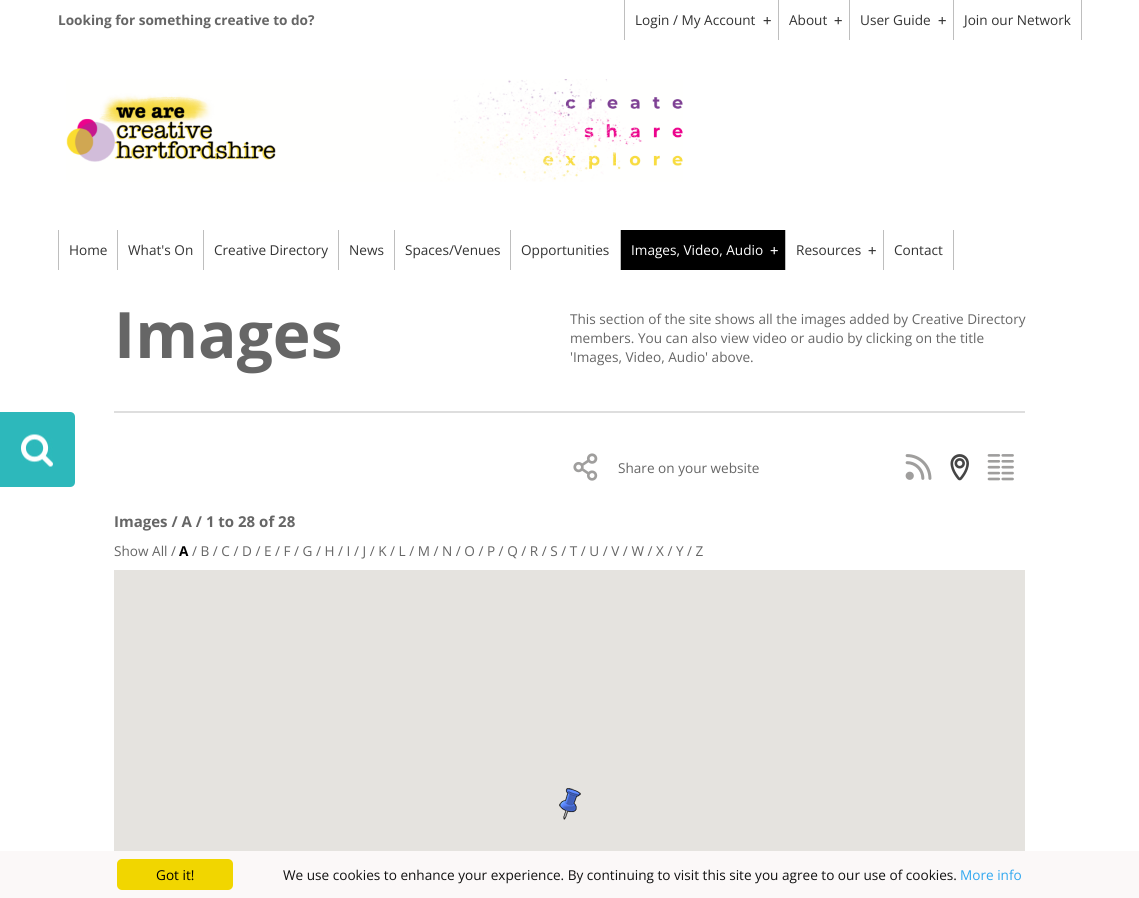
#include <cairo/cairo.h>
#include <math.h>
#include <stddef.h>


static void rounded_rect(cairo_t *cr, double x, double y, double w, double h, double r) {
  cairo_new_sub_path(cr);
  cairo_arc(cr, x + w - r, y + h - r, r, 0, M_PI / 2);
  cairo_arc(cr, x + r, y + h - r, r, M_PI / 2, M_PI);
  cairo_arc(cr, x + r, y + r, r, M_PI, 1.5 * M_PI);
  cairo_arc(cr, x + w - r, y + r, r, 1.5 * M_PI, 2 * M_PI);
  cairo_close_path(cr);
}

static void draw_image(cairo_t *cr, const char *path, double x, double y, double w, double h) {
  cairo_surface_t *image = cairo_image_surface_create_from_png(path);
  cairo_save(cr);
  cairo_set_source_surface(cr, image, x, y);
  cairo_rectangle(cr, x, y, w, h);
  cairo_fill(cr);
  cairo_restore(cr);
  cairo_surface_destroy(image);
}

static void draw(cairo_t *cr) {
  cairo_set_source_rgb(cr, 1, 1, 1);
  cairo_paint(cr);
  cairo_set_source_rgb(cr, 190 / 255.0, 190 / 255.0, 190 / 255.0);
  cairo_rectangle(cr, 624, 0, 1, 40);
  cairo_fill(cr);
  cairo_rectangle(cr, 778, 0, 1, 40);
  cairo_fill(cr);
  cairo_rectangle(cr, 849, 0, 1, 40);
  cairo_fill(cr);
  cairo_rectangle(cr, 1081, 0, 1, 40);
  cairo_fill(cr);
  cairo_rectangle(cr, 953, 0, 1, 40);
  cairo_fill(cr);
  draw_image(cr, "images/1.png", 66, 79, 617, 103);
  cairo_rectangle(cr, 58, 230, 1, 40);
  cairo_fill(cr);
  cairo_rectangle(cr, 117, 230, 1, 40);
  cairo_fill(cr);
  cairo_rectangle(cr, 203, 230, 1, 40);
  cairo_fill(cr);
  cairo_rectangle(cr, 338, 230, 1, 40);
  cairo_fill(cr);
  cairo_rectangle(cr, 394, 230, 1, 40);
  cairo_fill(cr);
  cairo_rectangle(cr, 510, 230, 1, 40);
  cairo_fill(cr);
  cairo_set_source_rgb(cr, 0, 0, 0);
  cairo_rectangle(cr, 621, 230, 164, 40);
  cairo_fill(cr);
  cairo_set_source_rgb(cr, 190 / 255.0, 190 / 255.0, 190 / 255.0);
  cairo_rectangle(cr, 620, 230, 1, 40);
  cairo_fill(cr);
  cairo_rectangle(cr, 785, 230, 1, 40);
  cairo_fill(cr);
  cairo_rectangle(cr, 953, 230, 1, 40);
  cairo_fill(cr);
  cairo_rectangle(cr, 883, 230, 1, 40);
  cairo_fill(cr);
  cairo_set_source_rgb(cr, 222 / 255.0, 222 / 255.0, 222 / 255.0);
  cairo_rectangle(cr, 114, 411, 911, 2);
  cairo_fill(cr);
  cairo_set_source_rgb(cr, 45 / 255.0, 184 / 255.0, 187 / 255.0);
  cairo_new_path(cr);
  cairo_move_to(cr, 0, 412);
  cairo_line_to(cr, 70, 412);
  cairo_curve_to(cr, 73, 412, 75, 414, 75, 417);
  cairo_line_to(cr, 75, 482);
  cairo_curve_to(cr, 75, 485, 73, 487, 70, 487);
  cairo_line_to(cr, 0, 487);
  cairo_close_path(cr);
  cairo_fill(cr);
  draw_image(cr, "images/2.png", 21, 434, 32, 33);
  draw_image(cr, "images/3.png", 573, 453, 25, 28);
  draw_image(cr, "images/4.png", 905, 454, 27, 26);
  draw_image(cr, "images/5.png", 950, 454, 19, 27);
  draw_image(cr, "images/6.png", 987, 454, 27, 27);
  cairo_set_source_rgb(cr, 229 / 255.0, 227 / 255.0, 223 / 255.0);
  cairo_rectangle(cr, 114, 570, 911, 281);
  cairo_fill(cr);
  draw_image(cr, "images/7.png", 559, 788, 22, 32);
  cairo_set_source_rgb(cr, 251 / 255.0, 248 / 255.0, 248 / 255.0);
  cairo_rectangle(cr, 0, 851, 1139, 47);
  cairo_fill(cr);
  cairo_set_source_rgb(cr, 241 / 255.0, 214 / 255.0, 0);
  rounded_rect(cr, 117, 859, 116, 31, 5);
  cairo_fill(cr);
  cairo_select_font_face(cr, "Open Sans", CAIRO_FONT_SLANT_NORMAL, CAIRO_FONT_WEIGHT_BOLD);
  cairo_set_font_size(cr, 13.6);
  cairo_set_source_rgb(cr, 102 / 255.0, 102 / 255.0, 102 / 255.0);
  cairo_move_to(cr, 58, 25);
  cairo_show_text(cr, "Looking for something creative to do?");
  cairo_select_font_face(cr, "Open Sans", CAIRO_FONT_SLANT_NORMAL, CAIRO_FONT_WEIGHT_NORMAL);
  cairo_set_source_rgb(cr, 51 / 255.0, 51 / 255.0, 51 / 255.0);
  cairo_move_to(cr, 635, 25);
  cairo_show_text(cr, "Login / My Account");
  cairo_select_font_face(cr, "DejaVu Sans Mono", CAIRO_FONT_SLANT_NORMAL, CAIRO_FONT_WEIGHT_NORMAL);
  cairo_set_font_size(cr, 14);
  cairo_move_to(cr, 763, 25);
  cairo_show_text(cr, "+");
  cairo_select_font_face(cr, "Open Sans", CAIRO_FONT_SLANT_NORMAL, CAIRO_FONT_WEIGHT_NORMAL);
  cairo_set_font_size(cr, 13.6);
  cairo_move_to(cr, 789, 25);
  cairo_show_text(cr, "About");
  cairo_select_font_face(cr, "DejaVu Sans Mono", CAIRO_FONT_SLANT_NORMAL, CAIRO_FONT_WEIGHT_NORMAL);
  cairo_set_font_size(cr, 14);
  cairo_move_to(cr, 834, 25);
  cairo_show_text(cr, "+");
  cairo_select_font_face(cr, "Open Sans", CAIRO_FONT_SLANT_NORMAL, CAIRO_FONT_WEIGHT_NORMAL);
  cairo_set_font_size(cr, 13.6);
  cairo_move_to(cr, 860, 25);
  cairo_show_text(cr, "User Guide");
  cairo_select_font_face(cr, "DejaVu Sans Mono", CAIRO_FONT_SLANT_NORMAL, CAIRO_FONT_WEIGHT_NORMAL);
  cairo_set_font_size(cr, 14);
  cairo_move_to(cr, 938, 25);
  cairo_show_text(cr, "+");
  cairo_select_font_face(cr, "Open Sans", CAIRO_FONT_SLANT_NORMAL, CAIRO_FONT_WEIGHT_NORMAL);
  cairo_set_font_size(cr, 13.6);
  cairo_move_to(cr, 964, 25);
  cairo_show_text(cr, "Join our Network");
  cairo_move_to(cr, 69, 255);
  cairo_show_text(cr, "Home");
  cairo_move_to(cr, 128, 255);
  cairo_show_text(cr, "What's On");
  cairo_move_to(cr, 214, 255);
  cairo_show_text(cr, "Creative Directory");
  cairo_move_to(cr, 349, 255);
  cairo_show_text(cr, "News");
  cairo_move_to(cr, 405, 255);
  cairo_show_text(cr, "Spaces/Venues");
  cairo_move_to(cr, 521, 255);
  cairo_show_text(cr, "Opportunities");
  cairo_set_source_rgb(cr, 1, 1, 1);
  cairo_move_to(cr, 631, 255);
  cairo_show_text(cr, "Images, Video, Audio");
  cairo_select_font_face(cr, "DejaVu Sans Mono", CAIRO_FONT_SLANT_NORMAL, CAIRO_FONT_WEIGHT_NORMAL);
  cairo_set_font_size(cr, 14);
  cairo_move_to(cr, 770, 255);
  cairo_show_text(cr, "+");
  cairo_select_font_face(cr, "Open Sans", CAIRO_FONT_SLANT_NORMAL, CAIRO_FONT_WEIGHT_NORMAL);
  cairo_set_font_size(cr, 13.6);
  cairo_set_source_rgb(cr, 51 / 255.0, 51 / 255.0, 51 / 255.0);
  cairo_move_to(cr, 796, 255);
  cairo_show_text(cr, "Resources");
  cairo_select_font_face(cr, "DejaVu Sans Mono", CAIRO_FONT_SLANT_NORMAL, CAIRO_FONT_WEIGHT_NORMAL);
  cairo_set_font_size(cr, 14);
  cairo_move_to(cr, 868, 255);
  cairo_show_text(cr, "+");
  cairo_select_font_face(cr, "Open Sans", CAIRO_FONT_SLANT_NORMAL, CAIRO_FONT_WEIGHT_NORMAL);
  cairo_set_font_size(cr, 13.6);
  cairo_move_to(cr, 894, 255);
  cairo_show_text(cr, "Contact");
  cairo_select_font_face(cr, "Open Sans", CAIRO_FONT_SLANT_NORMAL, CAIRO_FONT_WEIGHT_BOLD);
  cairo_set_font_size(cr, 64);
  cairo_set_source_rgb(cr, 102 / 255.0, 102 / 255.0, 102 / 255.0);
  cairo_move_to(cr, 114, 358);
  cairo_show_text(cr, "Images");
  cairo_select_font_face(cr, "Open Sans", CAIRO_FONT_SLANT_NORMAL, CAIRO_FONT_WEIGHT_NORMAL);
  cairo_set_font_size(cr, 13.6);
  cairo_move_to(cr, 570, 324);
  cairo_show_text(cr, "This section of the site shows all the images added by Creative Directory");
  cairo_move_to(cr, 570, 343);
  cairo_show_text(cr, "members. You can also view video or audio by clicking on the title");
  cairo_move_to(cr, 570, 362);
  cairo_show_text(cr, "'Images, Video, Audio' above.");
  cairo_move_to(cr, 618, 473);
  cairo_show_text(cr, "Share on your website");
  cairo_select_font_face(cr, "Open Sans", CAIRO_FONT_SLANT_NORMAL, CAIRO_FONT_WEIGHT_BOLD);
  cairo_set_font_size(cr, 15);
  cairo_move_to(cr, 114, 527);
  cairo_show_text(cr, "Images / A / 1 to 28 of 28");
  cairo_select_font_face(cr, "Open Sans", CAIRO_FONT_SLANT_NORMAL, CAIRO_FONT_WEIGHT_NORMAL);
  cairo_set_font_size(cr, 13.6);
  cairo_move_to(cr, 114, 556);
  cairo_show_text(cr, "Show All /");
  cairo_select_font_face(cr, "Open Sans", CAIRO_FONT_SLANT_NORMAL, CAIRO_FONT_WEIGHT_BOLD);
  cairo_set_source_rgb(cr, 0, 0, 0);
  cairo_move_to(cr, 179, 556);
  cairo_show_text(cr, "A");
  cairo_select_font_face(cr, "Open Sans", CAIRO_FONT_SLANT_NORMAL, CAIRO_FONT_WEIGHT_NORMAL);
  cairo_set_source_rgb(cr, 102 / 255.0, 102 / 255.0, 102 / 255.0);
  cairo_move_to(cr, 192, 556);
  cairo_show_text(cr, "/ B / C / D / E / F / G / H / I / J / K / L / M / N / O / P / Q / R / S / T / U / V / W / X / Y / Z");
  cairo_set_source_rgb(cr, 0, 0, 0);
  cairo_move_to(cr, 156, 880);
  cairo_show_text(cr, "Got it!");
  cairo_set_source_rgb(cr, 17 / 255.0, 17 / 255.0, 17 / 255.0);
  cairo_move_to(cr, 283, 880);
  cairo_show_text(cr, "We use cookies to enhance your experience. By continuing to visit this site you agree to our use of cookies.");
  cairo_set_source_rgb(cr, 49 / 255.0, 168 / 255.0, 240 / 255.0);
  cairo_move_to(cr, 960, 880);
  cairo_show_text(cr, "More info");
}

int main(void) {
  cairo_surface_t *surface = cairo_image_surface_create(CAIRO_FORMAT_RGB24, 1139, 898);
  cairo_t *cr = cairo_create(surface);
  cairo_font_options_t *options = cairo_font_options_create();
  cairo_font_options_set_hint_metrics(options, CAIRO_HINT_METRICS_OFF);
  cairo_font_options_set_hint_style(options, CAIRO_HINT_STYLE_NONE);
  cairo_set_font_options(cr, options);
  cairo_set_miter_limit(cr, 4);
  draw(cr);
  cairo_surface_write_to_png(surface, "out.png");
  cairo_font_options_destroy(options);
  cairo_destroy(cr);
  cairo_surface_destroy(surface);
  return 0;
}
